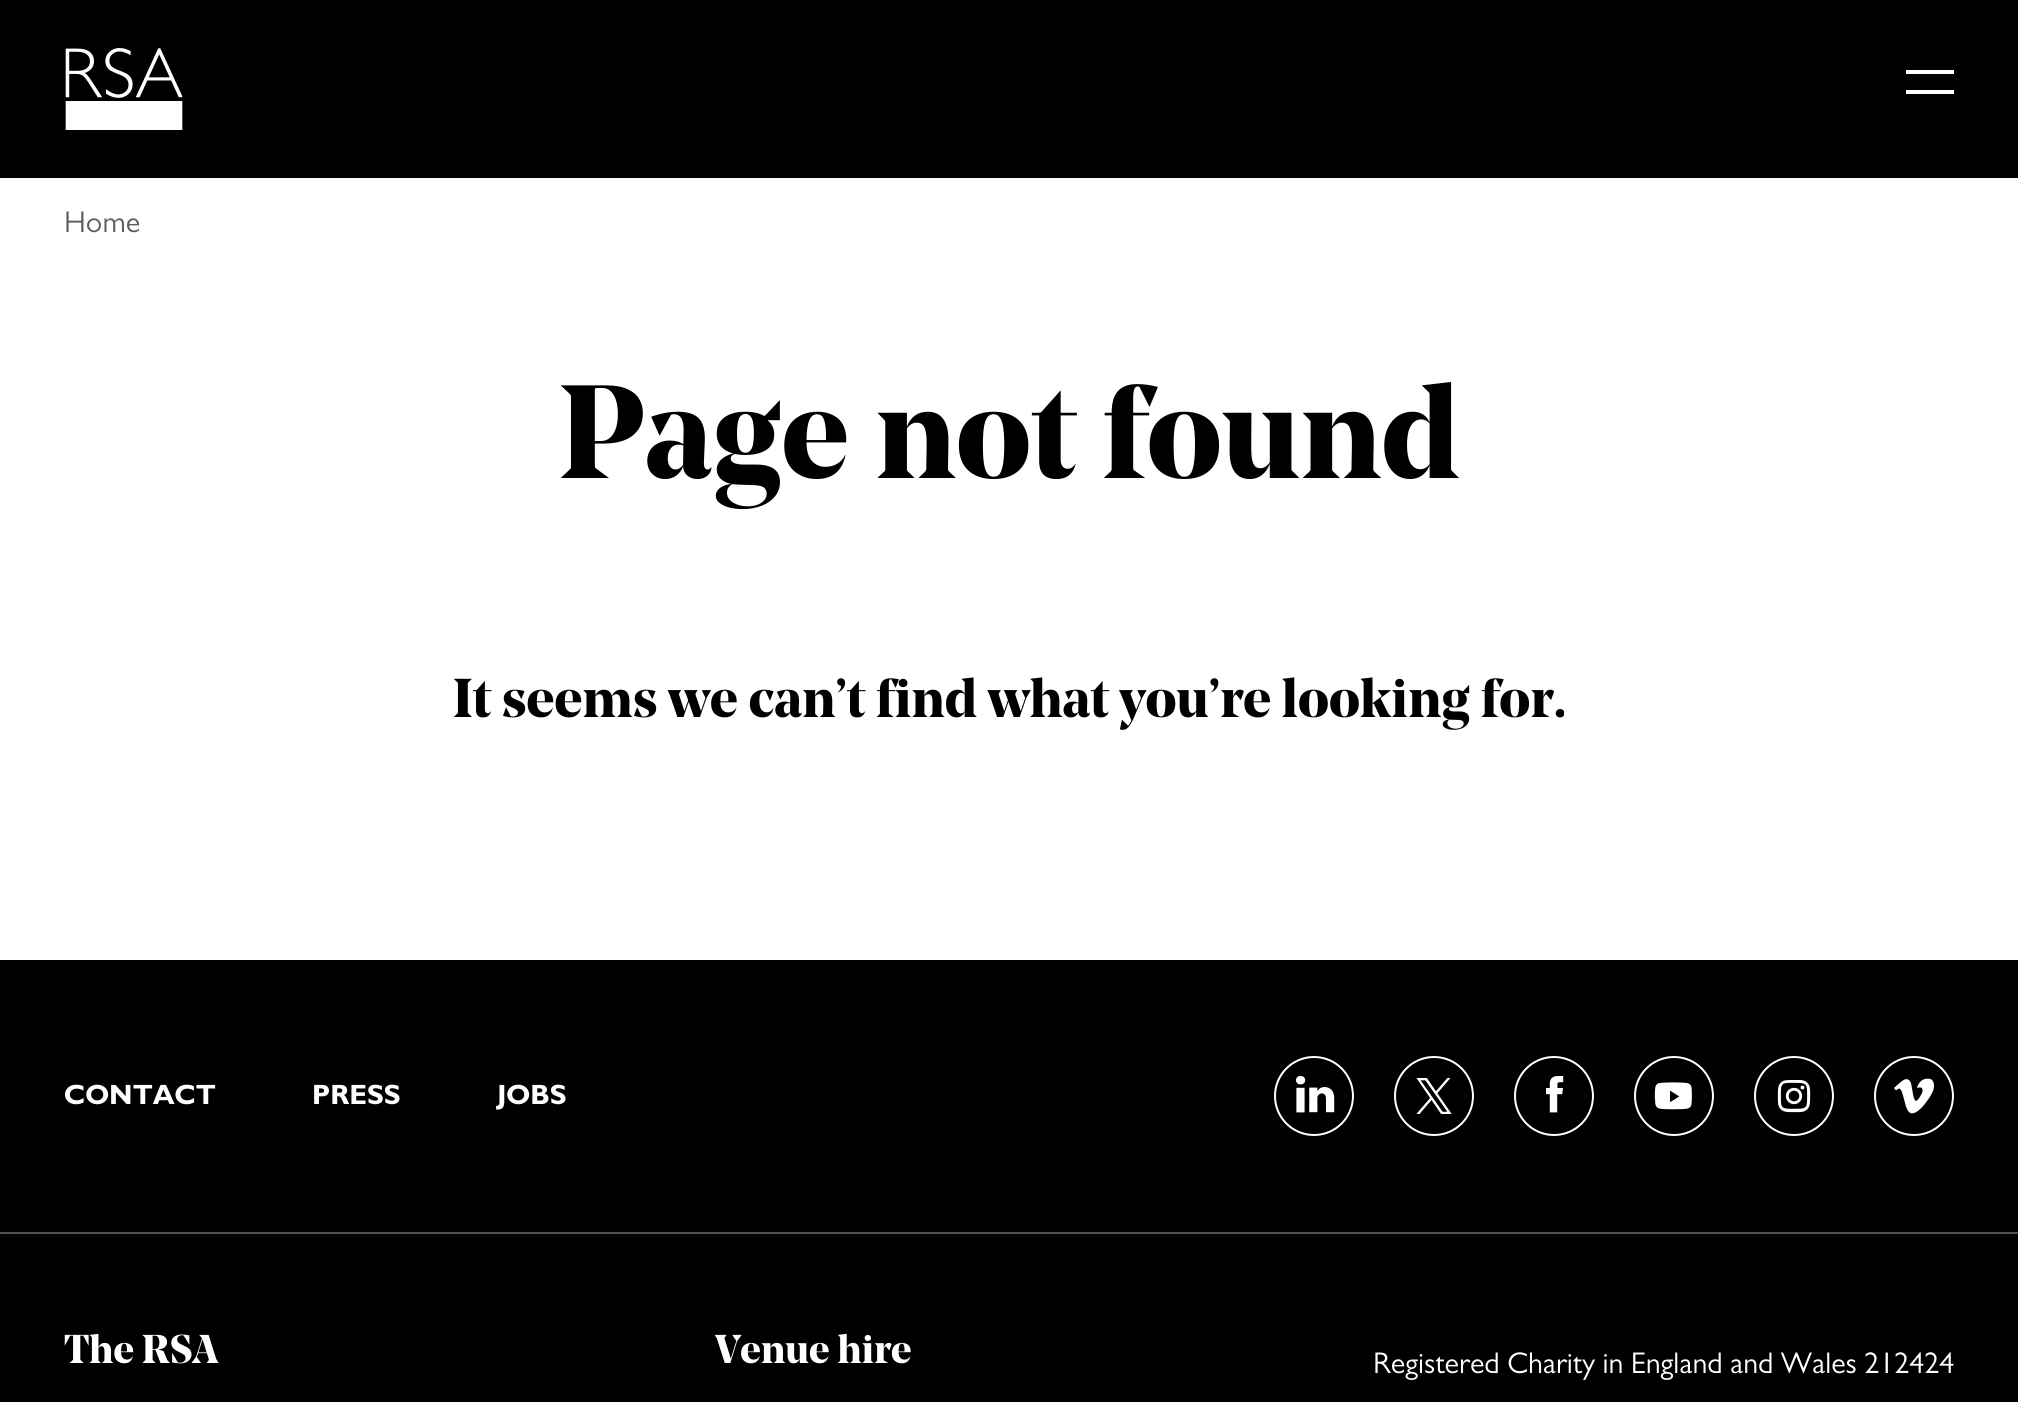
#include <cairo/cairo.h>
#include <math.h>
#include <stddef.h>


static void draw_image(cairo_t *cr, const char *path, double x, double y, double w, double h) {
  cairo_surface_t *image = cairo_image_surface_create_from_png(path);
  cairo_save(cr);
  cairo_set_source_surface(cr, image, x, y);
  cairo_rectangle(cr, x, y, w, h);
  cairo_fill(cr);
  cairo_restore(cr);
  cairo_surface_destroy(image);
}

static void draw(cairo_t *cr) {
  cairo_set_source_rgb(cr, 1, 1, 1);
  cairo_paint(cr);
  cairo_set_source_rgb(cr, 0, 0, 0);
  cairo_rectangle(cr, 0, 0, 2018, 178);
  cairo_fill(cr);
  draw_image(cr, "images/1.png", 65, 48, 118, 82);
  cairo_set_source_rgb(cr, 1, 1, 1);
  cairo_rectangle(cr, 1906, 70, 48, 4);
  cairo_fill(cr);
  cairo_rectangle(cr, 1906, 90, 48, 4);
  cairo_fill(cr);
  cairo_set_source_rgb(cr, 0, 0, 0);
  cairo_rectangle(cr, 0, 960, 2018, 442);
  cairo_fill(cr);
  cairo_arc(cr, 1314, 1096, 39, 0, 2 * M_PI);
  cairo_set_source_rgb(cr, 1, 1, 1);
  cairo_stroke(cr);
  draw_image(cr, "images/2.png", 1296, 1076, 39, 37);
  cairo_arc(cr, 1434, 1096, 39, 0, 2 * M_PI);
  cairo_stroke(cr);
  draw_image(cr, "images/3.png", 1416, 1078, 36, 36);
  cairo_arc(cr, 1554, 1096, 39, 0, 2 * M_PI);
  cairo_stroke(cr);
  draw_image(cr, "images/4.png", 1546, 1076, 18, 37);
  cairo_arc(cr, 1674, 1096, 39, 0, 2 * M_PI);
  cairo_stroke(cr);
  draw_image(cr, "images/5.png", 1654, 1082, 38, 28);
  cairo_arc(cr, 1794, 1096, 39, 0, 2 * M_PI);
  cairo_stroke(cr);
  draw_image(cr, "images/6.png", 1777, 1080, 34, 33);
  cairo_arc(cr, 1914, 1096, 39, 0, 2 * M_PI);
  cairo_stroke(cr);
  draw_image(cr, "images/7.png", 1894, 1078, 40, 36);
  cairo_set_source_rgb(cr, 79 / 255.0, 79 / 255.0, 79 / 255.0);
  cairo_rectangle(cr, 0, 1232, 2018, 2);
  cairo_fill(cr);
  cairo_select_font_face(cr, "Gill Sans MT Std", CAIRO_FONT_SLANT_NORMAL, CAIRO_FONT_WEIGHT_NORMAL);
  cairo_set_font_size(cr, 30);
  cairo_set_source_rgb(cr, 95 / 255.0, 95 / 255.0, 95 / 255.0);
  cairo_move_to(cr, 64, 232);
  cairo_show_text(cr, "Home");
  cairo_select_font_face(cr, "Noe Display", CAIRO_FONT_SLANT_NORMAL, CAIRO_FONT_WEIGHT_BOLD);
  cairo_set_font_size(cr, 131.75);
  cairo_set_source_rgb(cr, 0, 0, 0);
  cairo_move_to(cr, 559, 478);
  cairo_show_text(cr, "Page not found");
  cairo_set_font_size(cr, 54.35);
  cairo_move_to(cr, 453, 717);
  cairo_show_text(cr, "It seems we can’t find what you’re looking for.");
  cairo_select_font_face(cr, "Gill Sans MT Std", CAIRO_FONT_SLANT_NORMAL, CAIRO_FONT_WEIGHT_BOLD);
  cairo_set_font_size(cr, 28);
  cairo_set_source_rgb(cr, 1, 1, 1);
  cairo_move_to(cr, 64, 1104);
  cairo_show_text(cr, "CONTACT");
  cairo_move_to(cr, 312, 1104);
  cairo_show_text(cr, "PRESS");
  cairo_move_to(cr, 497, 1104);
  cairo_show_text(cr, "JOBS");
  cairo_select_font_face(cr, "Noe Display", CAIRO_FONT_SLANT_NORMAL, CAIRO_FONT_WEIGHT_BOLD);
  cairo_set_font_size(cr, 40);
  cairo_move_to(cr, 64, 1363);
  cairo_show_text(cr, "The RSA");
  cairo_move_to(cr, 715, 1363);
  cairo_show_text(cr, "Venue hire");
  cairo_select_font_face(cr, "Gill Sans MT Std", CAIRO_FONT_SLANT_NORMAL, CAIRO_FONT_WEIGHT_NORMAL);
  cairo_set_font_size(cr, 30);
  cairo_move_to(cr, 1373, 1373);
  cairo_show_text(cr, "Registered Charity in England and Wales 212424");
}

int main(void) {
  cairo_surface_t *surface = cairo_image_surface_create(CAIRO_FORMAT_RGB24, 2018, 1402);
  cairo_t *cr = cairo_create(surface);
  cairo_font_options_t *options = cairo_font_options_create();
  cairo_font_options_set_hint_metrics(options, CAIRO_HINT_METRICS_OFF);
  cairo_font_options_set_hint_style(options, CAIRO_HINT_STYLE_NONE);
  cairo_set_font_options(cr, options);
  cairo_set_miter_limit(cr, 4);
  draw(cr);
  cairo_surface_write_to_png(surface, "out.png");
  cairo_font_options_destroy(options);
  cairo_destroy(cr);
  cairo_surface_destroy(surface);
  return 0;
}
